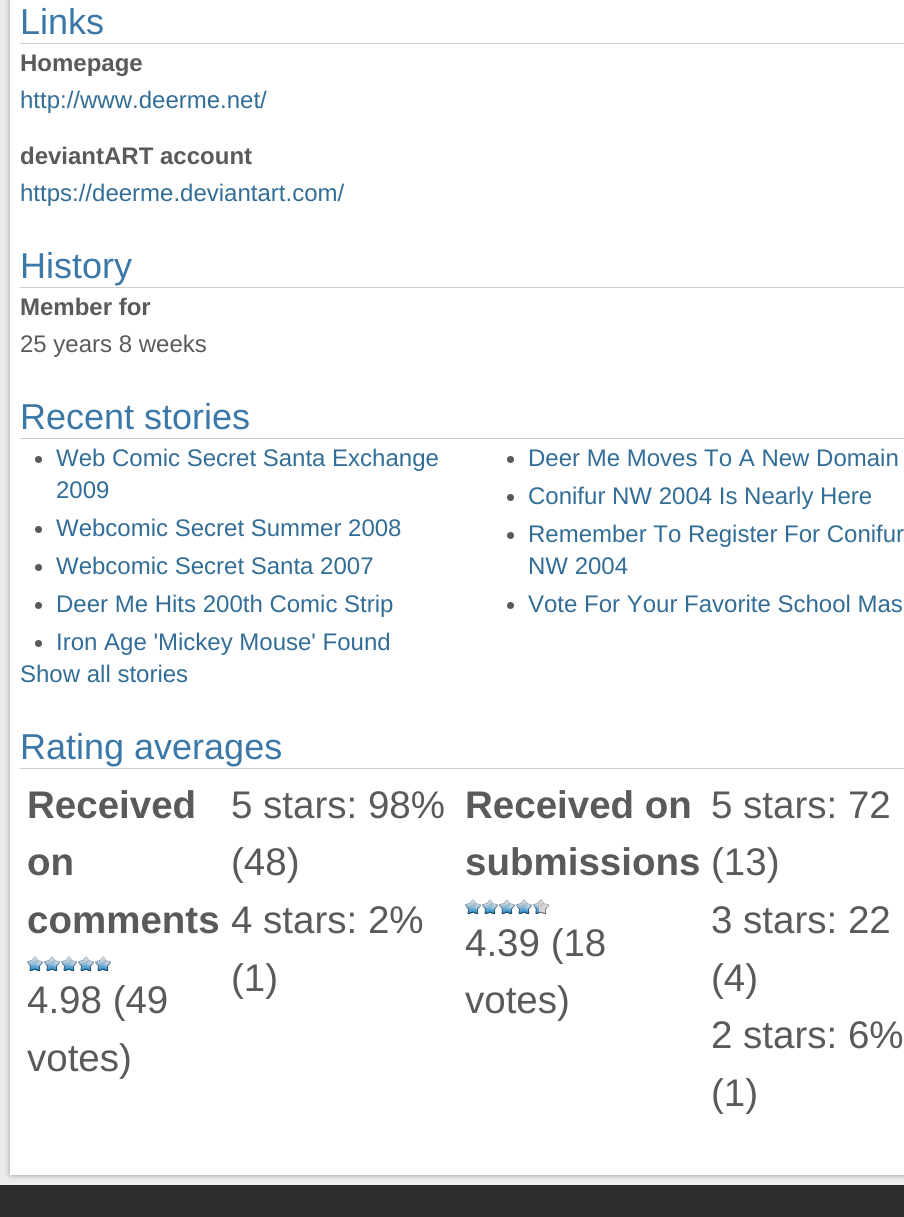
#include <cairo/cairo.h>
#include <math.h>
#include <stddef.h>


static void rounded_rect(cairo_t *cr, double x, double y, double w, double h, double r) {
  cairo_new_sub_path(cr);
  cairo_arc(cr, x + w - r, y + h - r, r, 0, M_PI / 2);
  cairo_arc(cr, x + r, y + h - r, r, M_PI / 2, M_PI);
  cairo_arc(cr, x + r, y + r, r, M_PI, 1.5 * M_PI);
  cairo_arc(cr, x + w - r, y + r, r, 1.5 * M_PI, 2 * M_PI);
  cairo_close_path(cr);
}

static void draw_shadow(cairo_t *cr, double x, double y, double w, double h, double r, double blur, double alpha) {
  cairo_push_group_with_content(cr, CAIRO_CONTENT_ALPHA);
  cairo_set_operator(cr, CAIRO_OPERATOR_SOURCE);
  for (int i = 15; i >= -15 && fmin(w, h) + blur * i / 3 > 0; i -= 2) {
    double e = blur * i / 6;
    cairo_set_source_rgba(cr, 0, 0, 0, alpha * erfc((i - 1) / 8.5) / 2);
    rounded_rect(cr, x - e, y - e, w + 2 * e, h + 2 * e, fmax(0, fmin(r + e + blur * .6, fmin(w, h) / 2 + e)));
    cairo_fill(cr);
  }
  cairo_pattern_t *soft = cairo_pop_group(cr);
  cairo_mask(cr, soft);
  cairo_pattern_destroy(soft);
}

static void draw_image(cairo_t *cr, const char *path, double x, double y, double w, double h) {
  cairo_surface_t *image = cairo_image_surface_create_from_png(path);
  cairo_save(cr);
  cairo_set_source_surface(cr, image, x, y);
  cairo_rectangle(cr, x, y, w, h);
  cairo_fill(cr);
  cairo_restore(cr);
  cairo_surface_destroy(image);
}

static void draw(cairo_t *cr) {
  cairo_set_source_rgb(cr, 236 / 255.0, 236 / 255.0, 236 / 255.0);
  cairo_paint(cr);
  cairo_set_source_rgb(cr, 44 / 255.0, 44 / 255.0, 44 / 255.0);
  cairo_rectangle(cr, 0, 1185, 904, 32);
  cairo_fill(cr);
  cairo_set_source_rgb(cr, 128 / 255.0, 128 / 255.0, 128 / 255.0);
  draw_shadow(cr, 11, -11, 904, 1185, 0, 3.5, 1);
  cairo_set_source_rgb(cr, 1, 1, 1);
  cairo_rectangle(cr, 10, 0, 894, 1175);
  cairo_fill(cr);
  cairo_set_source_rgb(cr, 204 / 255.0, 204 / 255.0, 204 / 255.0);
  cairo_rectangle(cr, 20, 43, 884, 1);
  cairo_fill(cr);
  cairo_rectangle(cr, 20, 287, 884, 1);
  cairo_fill(cr);
  cairo_rectangle(cr, 20, 438, 884, 1);
  cairo_fill(cr);
  cairo_set_source_rgb(cr, 90 / 255.0, 90 / 255.0, 90 / 255.0);
  cairo_arc(cr, 38.5, 459.5, 3.5, 0, 2 * M_PI);
  cairo_fill(cr);
  cairo_arc(cr, 510.5, 459.5, 3.5, 0, 2 * M_PI);
  cairo_fill(cr);
  cairo_arc(cr, 510.5, 497.5, 3.5, 0, 2 * M_PI);
  cairo_fill(cr);
  cairo_arc(cr, 38.5, 529.5, 3.5, 0, 2 * M_PI);
  cairo_fill(cr);
  cairo_arc(cr, 510.5, 535.5, 3.5, 0, 2 * M_PI);
  cairo_fill(cr);
  cairo_arc(cr, 38.5, 567.5, 3.5, 0, 2 * M_PI);
  cairo_fill(cr);
  cairo_arc(cr, 38.5, 605.5, 3.5, 0, 2 * M_PI);
  cairo_fill(cr);
  cairo_arc(cr, 510.5, 605.5, 3.5, 0, 2 * M_PI);
  cairo_fill(cr);
  cairo_arc(cr, 38.5, 643.5, 3.5, 0, 2 * M_PI);
  cairo_fill(cr);
  cairo_set_source_rgb(cr, 204 / 255.0, 204 / 255.0, 204 / 255.0);
  cairo_rectangle(cr, 20, 768, 884, 1);
  cairo_fill(cr);
  draw_image(cr, "images/1.png", 27, 956, 16, 15);
  draw_image(cr, "images/1.png", 44, 956, 16, 15);
  draw_image(cr, "images/1.png", 61, 956, 16, 15);
  draw_image(cr, "images/1.png", 78, 956, 16, 15);
  draw_image(cr, "images/1.png", 95, 956, 16, 15);
  draw_image(cr, "images/1.png", 465, 899, 16, 15);
  draw_image(cr, "images/1.png", 482, 899, 16, 15);
  draw_image(cr, "images/1.png", 499, 899, 16, 15);
  draw_image(cr, "images/1.png", 516, 899, 16, 15);
  draw_image(cr, "images/2.png", 539, 899, 10, 15);
  draw_image(cr, "images/3.png", 533, 900, 6, 14);
  cairo_select_font_face(cr, "Liberation Sans", CAIRO_FONT_SLANT_NORMAL, CAIRO_FONT_WEIGHT_NORMAL);
  cairo_set_font_size(cr, 36);
  cairo_set_source_rgb(cr, 60 / 255.0, 120 / 255.0, 167 / 255.0);
  cairo_move_to(cr, 20, 34);
  cairo_show_text(cr, "Links");
  cairo_select_font_face(cr, "Liberation Sans", CAIRO_FONT_SLANT_NORMAL, CAIRO_FONT_WEIGHT_BOLD);
  cairo_set_font_size(cr, 24);
  cairo_set_source_rgb(cr, 90 / 255.0, 90 / 255.0, 90 / 255.0);
  cairo_move_to(cr, 20, 71);
  cairo_show_text(cr, "Homepage");
  cairo_select_font_face(cr, "Liberation Sans", CAIRO_FONT_SLANT_NORMAL, CAIRO_FONT_WEIGHT_NORMAL);
  cairo_set_source_rgb(cr, 50 / 255.0, 109 / 255.0, 150 / 255.0);
  cairo_move_to(cr, 20, 108);
  cairo_show_text(cr, "http://www.deerme.net/");
  cairo_select_font_face(cr, "Liberation Sans", CAIRO_FONT_SLANT_NORMAL, CAIRO_FONT_WEIGHT_BOLD);
  cairo_set_source_rgb(cr, 90 / 255.0, 90 / 255.0, 90 / 255.0);
  cairo_move_to(cr, 20, 164);
  cairo_show_text(cr, "deviantART account");
  cairo_select_font_face(cr, "Liberation Sans", CAIRO_FONT_SLANT_NORMAL, CAIRO_FONT_WEIGHT_NORMAL);
  cairo_set_source_rgb(cr, 50 / 255.0, 109 / 255.0, 150 / 255.0);
  cairo_move_to(cr, 20, 201);
  cairo_show_text(cr, "https://deerme.deviantart.com/");
  cairo_set_font_size(cr, 36);
  cairo_set_source_rgb(cr, 60 / 255.0, 120 / 255.0, 167 / 255.0);
  cairo_move_to(cr, 20, 278);
  cairo_show_text(cr, "History");
  cairo_select_font_face(cr, "Liberation Sans", CAIRO_FONT_SLANT_NORMAL, CAIRO_FONT_WEIGHT_BOLD);
  cairo_set_font_size(cr, 24);
  cairo_set_source_rgb(cr, 90 / 255.0, 90 / 255.0, 90 / 255.0);
  cairo_move_to(cr, 20, 315);
  cairo_show_text(cr, "Member for");
  cairo_select_font_face(cr, "Liberation Sans", CAIRO_FONT_SLANT_NORMAL, CAIRO_FONT_WEIGHT_NORMAL);
  cairo_move_to(cr, 20, 352);
  cairo_show_text(cr, "25 years 8 weeks");
  cairo_set_font_size(cr, 36);
  cairo_set_source_rgb(cr, 60 / 255.0, 120 / 255.0, 167 / 255.0);
  cairo_move_to(cr, 20, 429);
  cairo_show_text(cr, "Recent stories");
  cairo_set_font_size(cr, 24);
  cairo_set_source_rgb(cr, 50 / 255.0, 109 / 255.0, 150 / 255.0);
  cairo_move_to(cr, 56, 466);
  cairo_show_text(cr, "Web Comic Secret Santa Exchange");
  cairo_move_to(cr, 56, 498);
  cairo_show_text(cr, "2009");
  cairo_move_to(cr, 528, 466);
  cairo_show_text(cr, "Deer Me Moves To A New Domain");
  cairo_move_to(cr, 528, 504);
  cairo_show_text(cr, "Conifur NW 2004 Is Nearly Here");
  cairo_move_to(cr, 56, 536);
  cairo_show_text(cr, "Webcomic Secret Summer 2008");
  cairo_move_to(cr, 528, 542);
  cairo_show_text(cr, "Remember To Register For Conifur");
  cairo_move_to(cr, 528, 574);
  cairo_show_text(cr, "NW 2004");
  cairo_move_to(cr, 56, 574);
  cairo_show_text(cr, "Webcomic Secret Santa 2007");
  cairo_move_to(cr, 56, 612);
  cairo_show_text(cr, "Deer Me Hits 200th Comic Strip");
  cairo_move_to(cr, 528, 612);
  cairo_show_text(cr, "Vote For Your Favorite School Mas");
  cairo_move_to(cr, 56, 650);
  cairo_show_text(cr, "Iron Age 'Mickey Mouse' Found");
  cairo_move_to(cr, 20, 682);
  cairo_show_text(cr, "Show all stories");
  cairo_set_font_size(cr, 36);
  cairo_set_source_rgb(cr, 60 / 255.0, 120 / 255.0, 167 / 255.0);
  cairo_move_to(cr, 20, 759);
  cairo_show_text(cr, "Rating averages");
  cairo_select_font_face(cr, "Liberation Sans", CAIRO_FONT_SLANT_NORMAL, CAIRO_FONT_WEIGHT_BOLD);
  cairo_set_font_size(cr, 38.5);
  cairo_set_source_rgb(cr, 90 / 255.0, 90 / 255.0, 90 / 255.0);
  cairo_move_to(cr, 27, 818);
  cairo_show_text(cr, "Received");
  cairo_move_to(cr, 27, 875);
  cairo_show_text(cr, "on");
  cairo_move_to(cr, 27, 933);
  cairo_show_text(cr, "comments");
  cairo_select_font_face(cr, "Liberation Sans", CAIRO_FONT_SLANT_NORMAL, CAIRO_FONT_WEIGHT_NORMAL);
  cairo_move_to(cr, 27, 1013);
  cairo_show_text(cr, "4.98 (49");
  cairo_move_to(cr, 27, 1071);
  cairo_show_text(cr, "votes)");
  cairo_move_to(cr, 231, 818);
  cairo_show_text(cr, "5 stars: 98%");
  cairo_move_to(cr, 231, 875);
  cairo_show_text(cr, "(48)");
  cairo_move_to(cr, 231, 933);
  cairo_show_text(cr, "4 stars: 2%");
  cairo_move_to(cr, 231, 991);
  cairo_show_text(cr, "(1)");
  cairo_select_font_face(cr, "Liberation Sans", CAIRO_FONT_SLANT_NORMAL, CAIRO_FONT_WEIGHT_BOLD);
  cairo_move_to(cr, 465, 818);
  cairo_show_text(cr, "Received on");
  cairo_move_to(cr, 465, 875);
  cairo_show_text(cr, "submissions");
  cairo_select_font_face(cr, "Liberation Sans", CAIRO_FONT_SLANT_NORMAL, CAIRO_FONT_WEIGHT_NORMAL);
  cairo_move_to(cr, 465, 956);
  cairo_show_text(cr, "4.39 (18");
  cairo_move_to(cr, 465, 1013);
  cairo_show_text(cr, "votes)");
  cairo_move_to(cr, 711, 818);
  cairo_show_text(cr, "5 stars: 72");
  cairo_move_to(cr, 711, 875);
  cairo_show_text(cr, "(13)");
  cairo_move_to(cr, 711, 933);
  cairo_show_text(cr, "3 stars: 22");
  cairo_move_to(cr, 711, 991);
  cairo_show_text(cr, "(4)");
  cairo_move_to(cr, 711, 1048);
  cairo_show_text(cr, "2 stars: 6%");
  cairo_move_to(cr, 711, 1106);
  cairo_show_text(cr, "(1)");
}

int main(void) {
  cairo_surface_t *surface = cairo_image_surface_create(CAIRO_FORMAT_RGB24, 904, 1217);
  cairo_t *cr = cairo_create(surface);
  cairo_font_options_t *options = cairo_font_options_create();
  cairo_font_options_set_hint_metrics(options, CAIRO_HINT_METRICS_OFF);
  cairo_font_options_set_hint_style(options, CAIRO_HINT_STYLE_NONE);
  cairo_set_font_options(cr, options);
  cairo_set_miter_limit(cr, 4);
  draw(cr);
  cairo_surface_write_to_png(surface, "out.png");
  cairo_font_options_destroy(options);
  cairo_destroy(cr);
  cairo_surface_destroy(surface);
  return 0;
}
